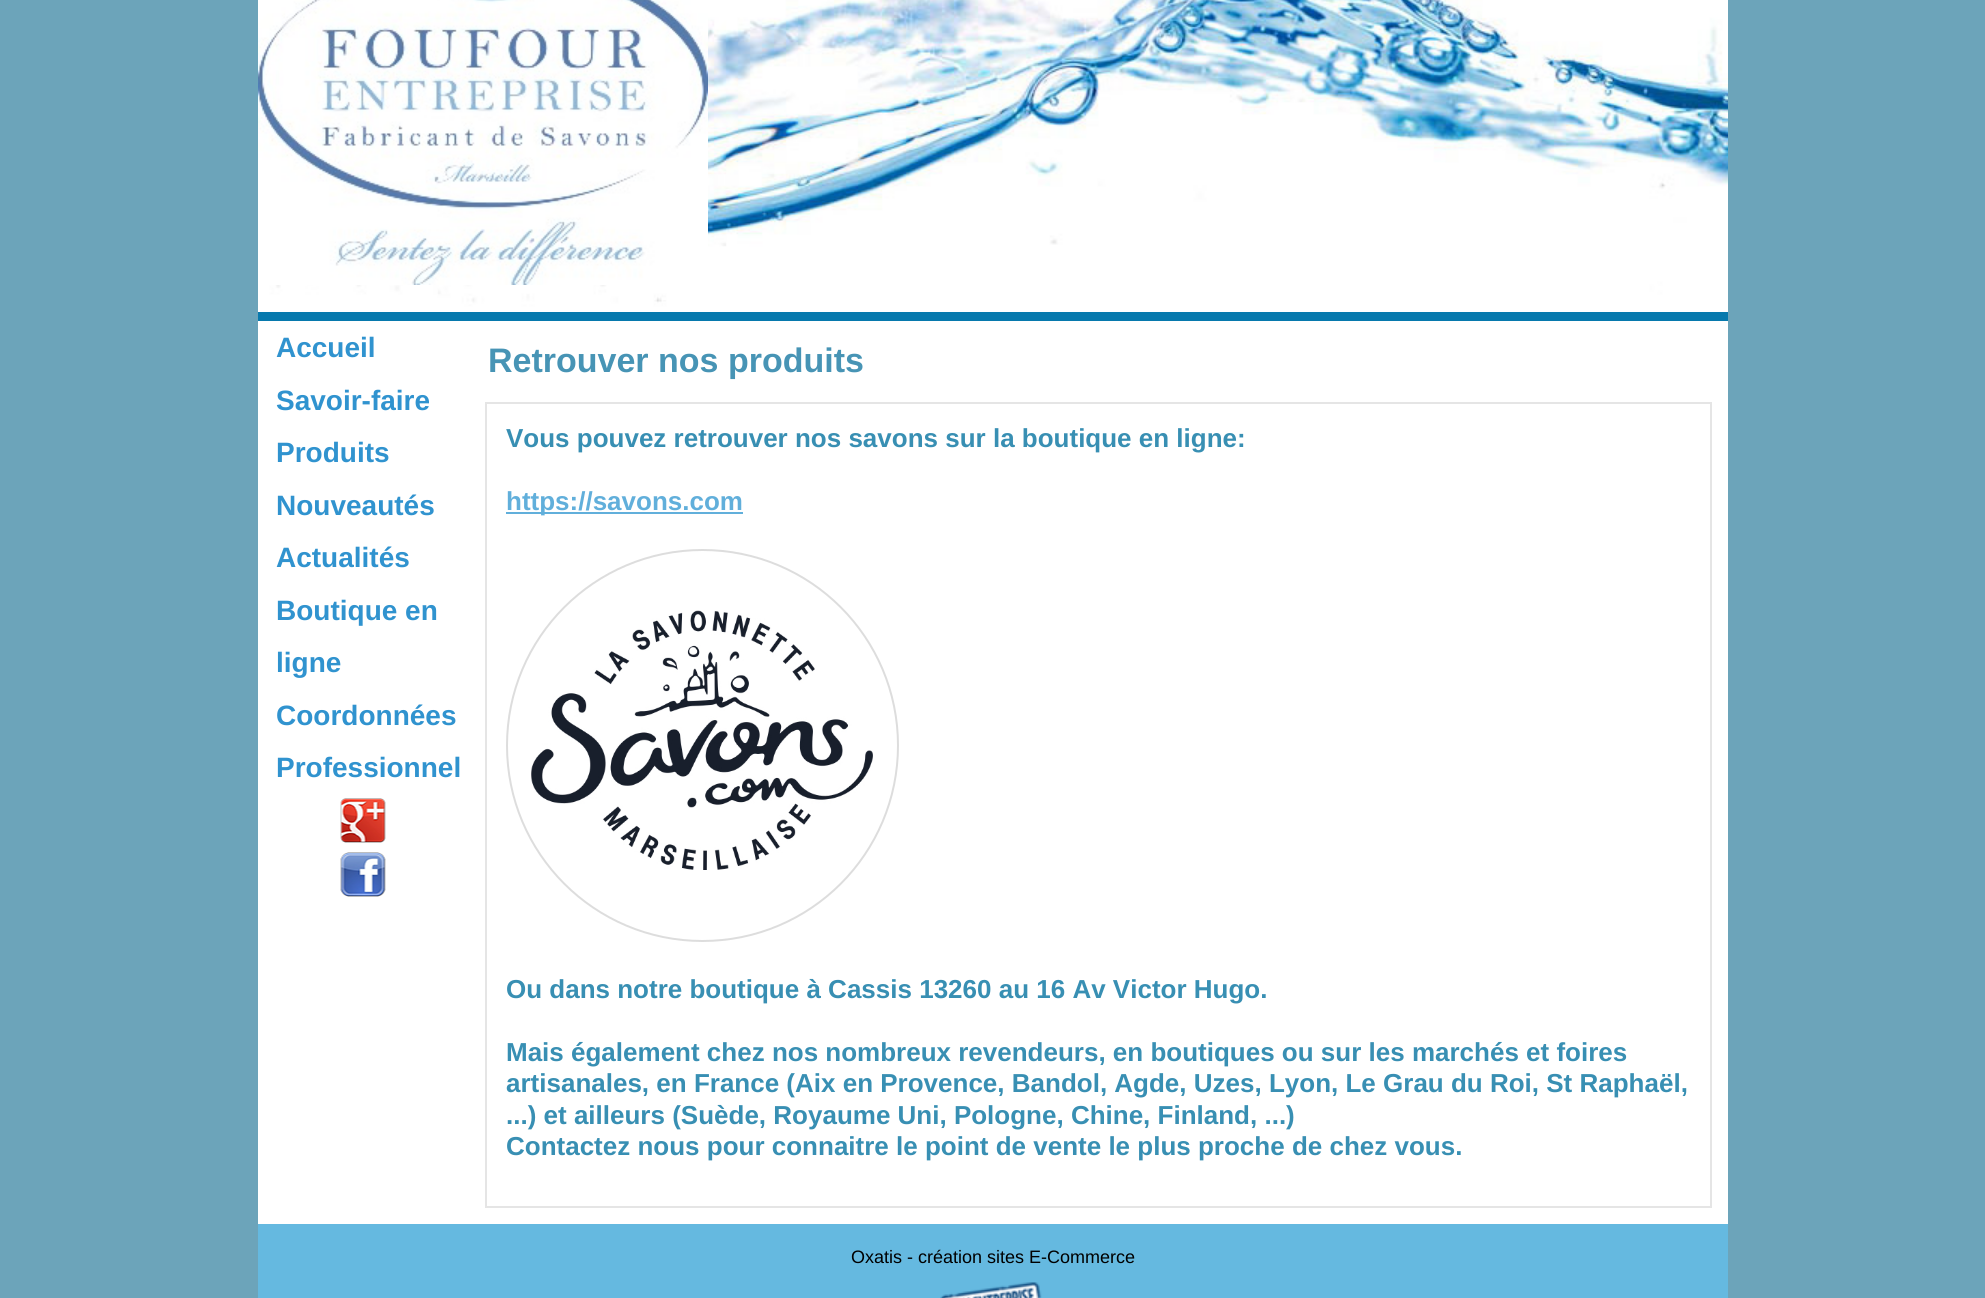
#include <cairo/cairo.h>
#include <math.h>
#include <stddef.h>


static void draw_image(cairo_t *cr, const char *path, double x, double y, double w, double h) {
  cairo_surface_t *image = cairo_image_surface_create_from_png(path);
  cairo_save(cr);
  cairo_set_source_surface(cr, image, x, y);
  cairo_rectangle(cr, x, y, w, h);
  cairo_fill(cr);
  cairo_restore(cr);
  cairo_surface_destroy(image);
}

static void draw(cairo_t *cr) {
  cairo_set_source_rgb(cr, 108 / 255.0, 164 / 255.0, 186 / 255.0);
  cairo_paint(cr);
  cairo_set_source_rgb(cr, 1, 1, 1);
  cairo_rectangle(cr, 258, 321, 1470, 903);
  cairo_fill(cr);
  cairo_set_source_rgb(cr, 7 / 255.0, 121 / 255.0, 173 / 255.0);
  cairo_rectangle(cr, 258, 312, 1470, 9);
  cairo_fill(cr);
  draw_image(cr, "images/1.png", 258, 0, 1470, 312);
  draw_image(cr, "images/2.png", 258, 0, 450, 285);
  draw_image(cr, "images/3.png", 340, 798, 46, 45);
  draw_image(cr, "images/4.png", 340, 852, 46, 45);
  cairo_rectangle(cr, 486, 403, 1225, 804);
  cairo_set_source_rgb(cr, 229 / 255.0, 229 / 255.0, 229 / 255.0);
  cairo_stroke(cr);
  cairo_set_source_rgb(cr, 97 / 255.0, 175 / 255.0, 219 / 255.0);
  cairo_rectangle(cr, 506, 512, 237, 2);
  cairo_fill(cr);
  cairo_arc(cr, 702.5, 745.5, 195.5, 0, 2 * M_PI);
  cairo_set_source_rgb(cr, 221 / 255.0, 221 / 255.0, 221 / 255.0);
  cairo_stroke(cr);
  draw_image(cr, "images/5.png", 531, 610, 342, 260);
  cairo_set_source_rgb(cr, 101 / 255.0, 185 / 255.0, 224 / 255.0);
  cairo_rectangle(cr, 258, 1224, 1470, 74);
  cairo_fill(cr);
  draw_image(cr, "images/6.png", 940, 1282, 102, 16);
  cairo_select_font_face(cr, "Liberation Sans", CAIRO_FONT_SLANT_NORMAL, CAIRO_FONT_WEIGHT_BOLD);
  cairo_set_font_size(cr, 28);
  cairo_set_source_rgb(cr, 48 / 255.0, 147 / 255.0, 207 / 255.0);
  cairo_move_to(cr, 276, 357);
  cairo_show_text(cr, "Accueil");
  cairo_move_to(cr, 276, 410);
  cairo_show_text(cr, "Savoir-faire");
  cairo_move_to(cr, 276, 462);
  cairo_show_text(cr, "Produits");
  cairo_move_to(cr, 276, 515);
  cairo_show_text(cr, "Nouveautés");
  cairo_move_to(cr, 276, 567);
  cairo_show_text(cr, "Actualités");
  cairo_move_to(cr, 276, 620);
  cairo_show_text(cr, "Boutique en");
  cairo_move_to(cr, 276, 672);
  cairo_show_text(cr, "ligne");
  cairo_move_to(cr, 276, 725);
  cairo_show_text(cr, "Coordonnées");
  cairo_move_to(cr, 276, 777);
  cairo_show_text(cr, "Professionnel");
  cairo_set_font_size(cr, 34);
  cairo_set_source_rgb(cr, 71 / 255.0, 148 / 255.0, 181 / 255.0);
  cairo_move_to(cr, 488, 372);
  cairo_show_text(cr, "Retrouver nos produits");
  cairo_set_font_size(cr, 26);
  cairo_set_source_rgb(cr, 56 / 255.0, 143 / 255.0, 179 / 255.0);
  cairo_move_to(cr, 506, 447);
  cairo_show_text(cr, "Vous pouvez retrouver nos savons sur la boutique en ligne:");
  cairo_set_source_rgb(cr, 97 / 255.0, 175 / 255.0, 219 / 255.0);
  cairo_move_to(cr, 506, 510);
  cairo_show_text(cr, "https://savons.com");
  cairo_set_source_rgb(cr, 56 / 255.0, 143 / 255.0, 179 / 255.0);
  cairo_move_to(cr, 506, 998);
  cairo_show_text(cr, "Ou dans notre boutique à Cassis 13260 au 16 Av Victor Hugo.");
  cairo_move_to(cr, 506, 1061);
  cairo_show_text(cr, "Mais également chez nos nombreux revendeurs, en boutiques ou sur les marchés et foires");
  cairo_move_to(cr, 506, 1092);
  cairo_show_text(cr, "artisanales, en France (Aix en Provence, Bandol, Agde, Uzes, Lyon, Le Grau du Roi, St Raphaël,");
  cairo_move_to(cr, 506, 1124);
  cairo_show_text(cr, "...) et ailleurs (Suède, Royaume Uni, Pologne, Chine, Finland, ...)");
  cairo_move_to(cr, 506, 1155);
  cairo_show_text(cr, "Contactez nous pour connaitre le point de vente le plus proche de chez vous.");
  cairo_select_font_face(cr, "Liberation Sans", CAIRO_FONT_SLANT_NORMAL, CAIRO_FONT_WEIGHT_NORMAL);
  cairo_set_font_size(cr, 18);
  cairo_set_source_rgb(cr, 0, 0, 0);
  cairo_move_to(cr, 851, 1263);
  cairo_show_text(cr, "Oxatis - création sites E-Commerce");
}

int main(void) {
  cairo_surface_t *surface = cairo_image_surface_create(CAIRO_FORMAT_RGB24, 1985, 1298);
  cairo_t *cr = cairo_create(surface);
  cairo_font_options_t *options = cairo_font_options_create();
  cairo_font_options_set_hint_metrics(options, CAIRO_HINT_METRICS_OFF);
  cairo_font_options_set_hint_style(options, CAIRO_HINT_STYLE_NONE);
  cairo_set_font_options(cr, options);
  cairo_set_miter_limit(cr, 4);
  draw(cr);
  cairo_surface_write_to_png(surface, "out.png");
  cairo_font_options_destroy(options);
  cairo_destroy(cr);
  cairo_surface_destroy(surface);
  return 0;
}
